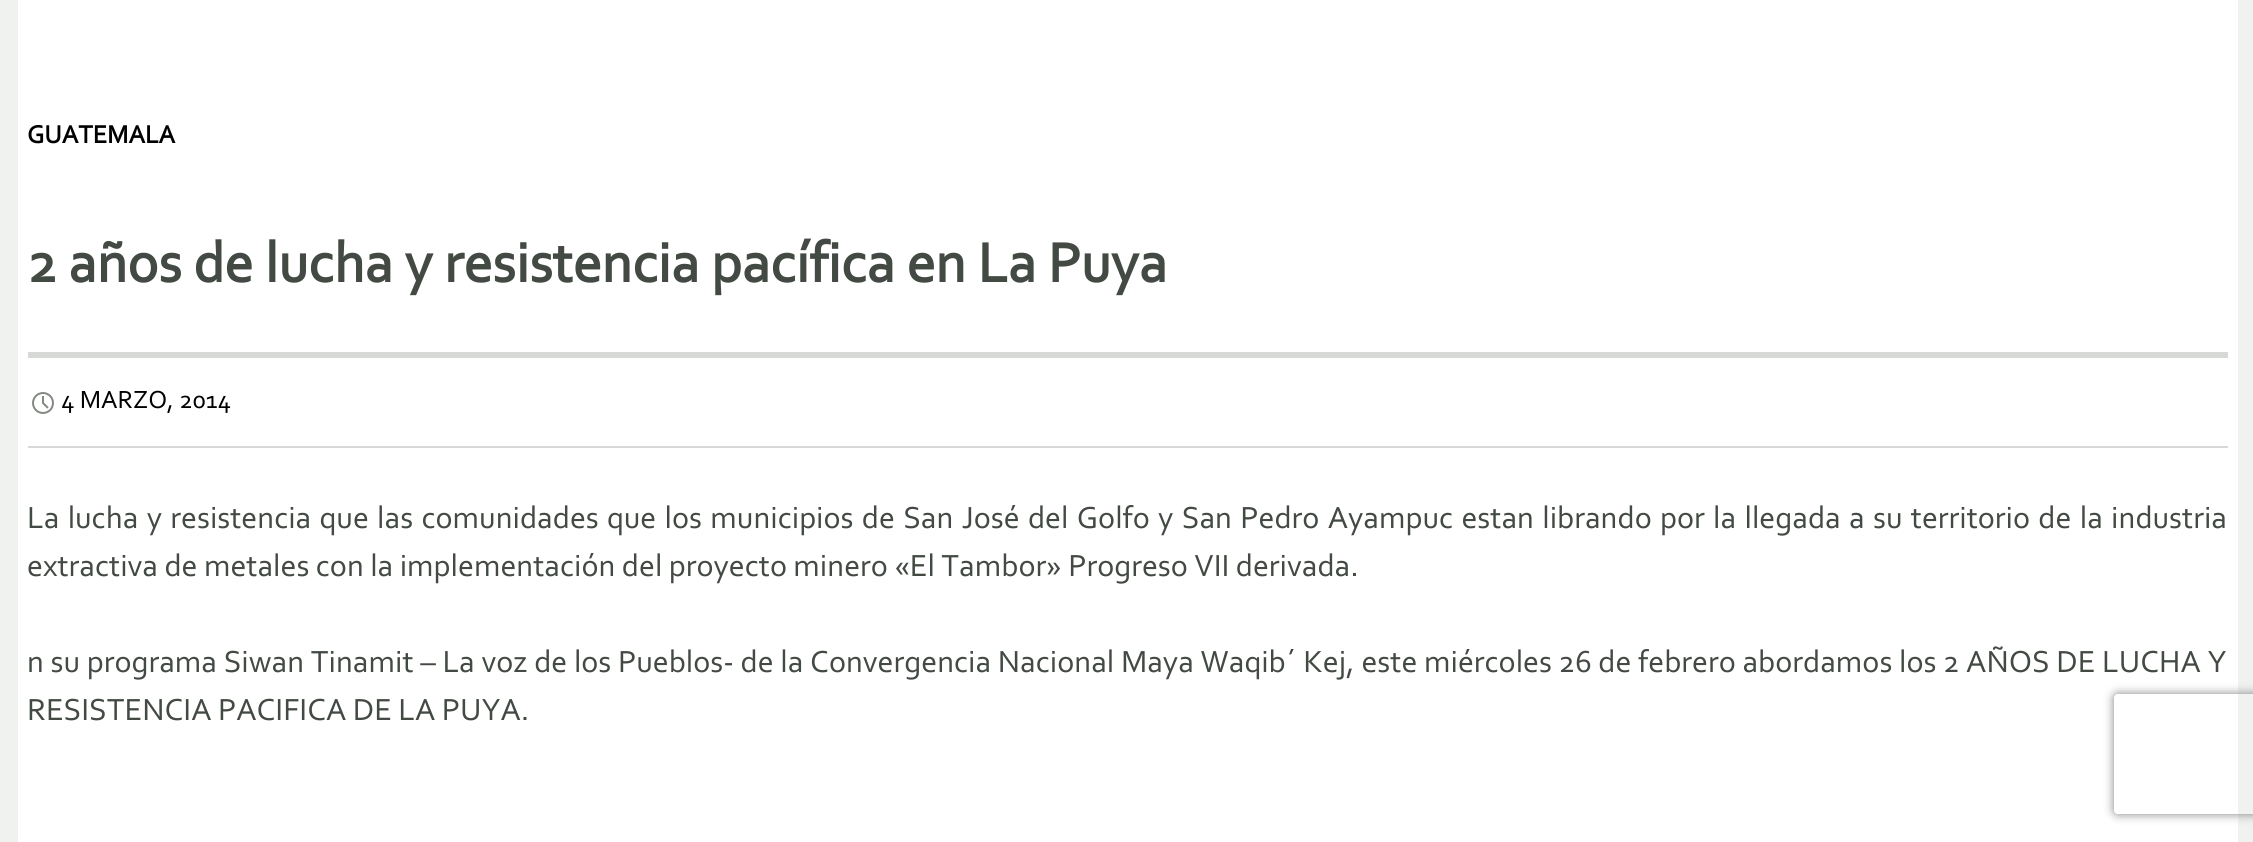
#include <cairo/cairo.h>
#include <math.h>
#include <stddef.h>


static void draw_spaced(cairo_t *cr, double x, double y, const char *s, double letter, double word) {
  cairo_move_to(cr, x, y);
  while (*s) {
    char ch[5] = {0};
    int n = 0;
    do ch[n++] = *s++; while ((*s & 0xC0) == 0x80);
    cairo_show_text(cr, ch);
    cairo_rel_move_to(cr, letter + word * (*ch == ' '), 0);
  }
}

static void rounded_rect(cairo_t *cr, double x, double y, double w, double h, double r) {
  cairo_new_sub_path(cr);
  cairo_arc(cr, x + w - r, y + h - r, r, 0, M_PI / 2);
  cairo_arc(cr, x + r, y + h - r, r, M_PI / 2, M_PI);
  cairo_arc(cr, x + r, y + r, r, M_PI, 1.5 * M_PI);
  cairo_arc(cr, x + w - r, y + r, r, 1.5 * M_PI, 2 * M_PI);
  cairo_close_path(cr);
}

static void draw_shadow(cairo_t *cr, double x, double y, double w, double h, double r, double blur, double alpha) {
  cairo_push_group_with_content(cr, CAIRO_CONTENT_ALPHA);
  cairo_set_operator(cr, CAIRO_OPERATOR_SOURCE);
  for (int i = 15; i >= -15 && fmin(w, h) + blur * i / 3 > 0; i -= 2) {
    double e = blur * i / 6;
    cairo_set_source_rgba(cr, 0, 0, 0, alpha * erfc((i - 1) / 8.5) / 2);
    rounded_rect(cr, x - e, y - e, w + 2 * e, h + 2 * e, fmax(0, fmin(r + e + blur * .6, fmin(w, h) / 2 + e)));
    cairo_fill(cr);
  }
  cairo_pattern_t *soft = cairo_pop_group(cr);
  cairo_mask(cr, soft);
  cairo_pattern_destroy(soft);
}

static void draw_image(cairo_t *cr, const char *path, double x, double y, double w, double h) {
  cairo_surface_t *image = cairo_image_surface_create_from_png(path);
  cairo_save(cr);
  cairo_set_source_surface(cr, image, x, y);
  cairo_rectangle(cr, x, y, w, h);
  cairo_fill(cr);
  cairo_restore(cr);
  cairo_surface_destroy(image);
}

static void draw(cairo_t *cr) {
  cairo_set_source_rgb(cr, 240 / 255.0, 242 / 255.0, 240 / 255.0);
  cairo_paint(cr);
  cairo_set_source_rgb(cr, 1, 1, 1);
  cairo_rectangle(cr, 18, 0, 2220, 842);
  cairo_fill(cr);
  cairo_set_source_rgb(cr, 215 / 255.0, 217 / 255.0, 215 / 255.0);
  cairo_rectangle(cr, 28, 352, 2200, 6);
  cairo_fill(cr);
  cairo_rectangle(cr, 28, 446, 2200, 2);
  cairo_fill(cr);
  draw_image(cr, "images/1.png", 32, 392, 22, 22);
  cairo_save(cr);
  cairo_set_fill_rule(cr, CAIRO_FILL_RULE_EVEN_ODD);
  cairo_new_path(cr);
  cairo_move_to(cr, 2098, 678);
  cairo_line_to(cr, 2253, 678);
  cairo_line_to(cr, 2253, 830);
  cairo_line_to(cr, 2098, 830);
  cairo_close_path(cr);
  cairo_move_to(cr, 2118, 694);
  cairo_line_to(cr, 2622, 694);
  cairo_curve_to(cr, 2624, 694, 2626, 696, 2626, 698);
  cairo_line_to(cr, 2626, 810);
  cairo_curve_to(cr, 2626, 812, 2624, 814, 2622, 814);
  cairo_line_to(cr, 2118, 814);
  cairo_curve_to(cr, 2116, 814, 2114, 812, 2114, 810);
  cairo_line_to(cr, 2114, 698);
  cairo_curve_to(cr, 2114, 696, 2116, 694, 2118, 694);
  cairo_close_path(cr);
  cairo_clip(cr);
  cairo_set_source_rgb(cr, 128 / 255.0, 128 / 255.0, 128 / 255.0);
  draw_shadow(cr, 2114, 694, 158, 120, 4, 5, 1);
  cairo_restore(cr);
  cairo_select_font_face(cr, "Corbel", CAIRO_FONT_SLANT_NORMAL, CAIRO_FONT_WEIGHT_BOLD);
  cairo_set_font_size(cr, 26);
  cairo_set_source_rgb(cr, 0, 0, 0);
  cairo_move_to(cr, 27, 143);
  cairo_show_text(cr, "GUATEMALA");
  cairo_set_font_size(cr, 58);
  cairo_set_source_rgb(cr, 67 / 255.0, 74 / 255.0, 67 / 255.0);
  cairo_move_to(cr, 27, 282);
  cairo_show_text(cr, "2 años de lucha y resistencia pacífica en La Puya");
  cairo_select_font_face(cr, "Corbel", CAIRO_FONT_SLANT_NORMAL, CAIRO_FONT_WEIGHT_NORMAL);
  cairo_set_font_size(cr, 26);
  cairo_set_source_rgb(cr, 0, 0, 0);
  cairo_move_to(cr, 61, 408);
  cairo_show_text(cr, "4 MARZO, 2014");
  cairo_set_font_size(cr, 32);
  cairo_set_source_rgb(cr, 67 / 255.0, 74 / 255.0, 67 / 255.0);
  draw_spaced(cr, 27, 528, "La lucha y resistencia que las comunidades que los municipios de San José del Golfo y San Pedro Ayampuc estan librando por la llegada a su territorio de la industria", 0, 1.9);
  cairo_move_to(cr, 27, 576);
  cairo_show_text(cr, "extractiva de metales con la implementación del proyecto minero «El Tambor» Progreso VII derivada.");
  draw_spaced(cr, 27, 672, "n su programa Siwan Tinamit – La voz de los Pueblos- de la Convergencia Nacional Maya Waqib´ Kej, este miércoles 26 de febrero abordamos los 2 AÑOS DE LUCHA Y", 0, 0.25);
  cairo_move_to(cr, 27, 720);
  cairo_show_text(cr, "RESISTENCIA PACIFICA DE LA PUYA.");
}

int main(void) {
  cairo_surface_t *surface = cairo_image_surface_create(CAIRO_FORMAT_RGB24, 2253, 842);
  cairo_t *cr = cairo_create(surface);
  cairo_font_options_t *options = cairo_font_options_create();
  cairo_font_options_set_hint_metrics(options, CAIRO_HINT_METRICS_OFF);
  cairo_font_options_set_hint_style(options, CAIRO_HINT_STYLE_NONE);
  cairo_set_font_options(cr, options);
  cairo_set_miter_limit(cr, 4);
  draw(cr);
  cairo_surface_write_to_png(surface, "out.png");
  cairo_font_options_destroy(options);
  cairo_destroy(cr);
  cairo_surface_destroy(surface);
  return 0;
}
